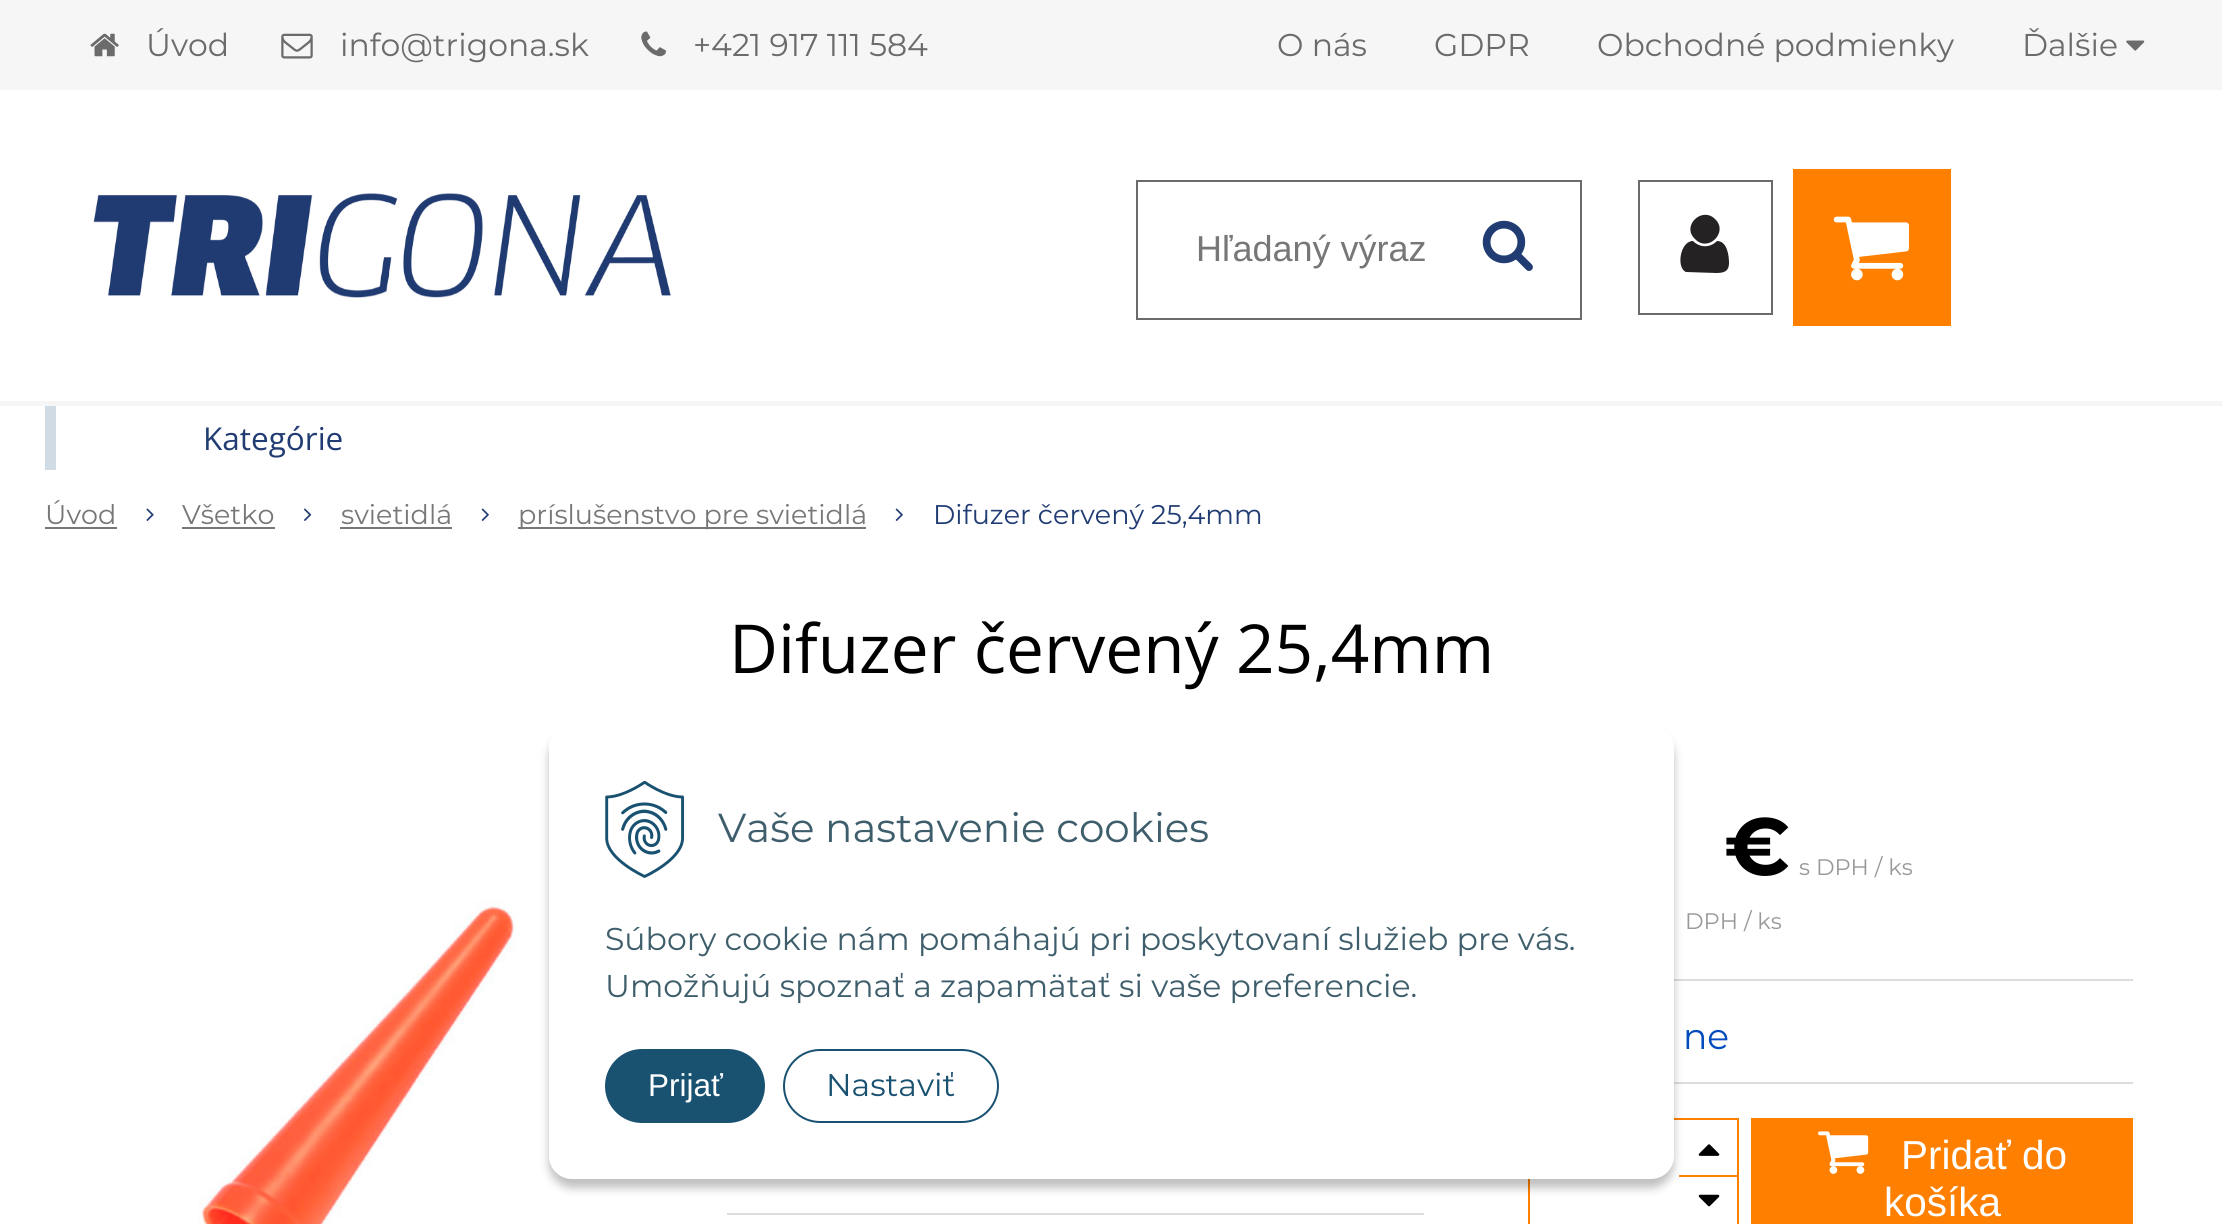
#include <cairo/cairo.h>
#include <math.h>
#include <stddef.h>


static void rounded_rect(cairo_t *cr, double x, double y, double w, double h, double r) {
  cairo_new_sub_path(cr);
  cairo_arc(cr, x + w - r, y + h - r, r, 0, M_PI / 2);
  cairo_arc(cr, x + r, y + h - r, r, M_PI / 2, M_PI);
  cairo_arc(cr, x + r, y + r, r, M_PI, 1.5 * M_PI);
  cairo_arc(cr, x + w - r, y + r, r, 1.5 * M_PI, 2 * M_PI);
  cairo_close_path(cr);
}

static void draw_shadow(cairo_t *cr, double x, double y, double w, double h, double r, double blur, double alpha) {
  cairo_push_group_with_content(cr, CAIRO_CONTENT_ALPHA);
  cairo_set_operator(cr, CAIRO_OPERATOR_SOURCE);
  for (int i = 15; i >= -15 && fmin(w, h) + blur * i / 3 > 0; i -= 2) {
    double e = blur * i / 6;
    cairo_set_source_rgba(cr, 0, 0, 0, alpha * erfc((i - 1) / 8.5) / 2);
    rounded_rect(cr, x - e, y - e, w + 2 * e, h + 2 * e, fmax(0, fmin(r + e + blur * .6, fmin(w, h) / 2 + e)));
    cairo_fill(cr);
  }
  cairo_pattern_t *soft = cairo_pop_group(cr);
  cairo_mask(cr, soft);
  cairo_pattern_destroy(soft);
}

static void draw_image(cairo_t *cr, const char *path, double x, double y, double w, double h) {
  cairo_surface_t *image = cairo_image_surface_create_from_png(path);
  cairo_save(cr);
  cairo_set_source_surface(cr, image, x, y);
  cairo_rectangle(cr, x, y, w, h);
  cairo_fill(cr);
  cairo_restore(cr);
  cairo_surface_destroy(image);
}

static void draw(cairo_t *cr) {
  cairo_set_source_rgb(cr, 1, 1, 1);
  cairo_paint(cr);
  cairo_set_source_rgb(cr, 246 / 255.0, 246 / 255.0, 246 / 255.0);
  cairo_rectangle(cr, 0, 401, 2222, 5);
  cairo_fill(cr);
  cairo_rectangle(cr, 0, 0, 2222, 90);
  cairo_fill(cr);
  draw_image(cr, "images/1.png", 90, 33, 29, 24);
  draw_image(cr, "images/2.png", 281, 33, 32, 26);
  draw_image(cr, "images/3.png", 641, 31, 25, 26);
  draw_image(cr, "images/4.png", 93, 193, 578, 105);
  draw_image(cr, "images/5.png", 2126, 40, 19, 11);
  cairo_rectangle(cr, 1137, 181, 444, 138);
  cairo_set_source_rgb(cr, 107 / 255.0, 107 / 255.0, 107 / 255.0);
  cairo_stroke(cr);
  draw_image(cr, "images/6.png", 1482, 220, 51, 51);
  cairo_rectangle(cr, 1639, 181, 133, 133);
  cairo_stroke(cr);
  cairo_set_source_rgb(cr, 37 / 255.0, 34 / 255.0, 35 / 255.0);
  cairo_new_path(cr);
  cairo_move_to(cr, 1729, 263);
  cairo_curve_to(cr, 1729, 272, 1723, 273, 1716, 273);
  cairo_line_to(cr, 1686, 272);
  cairo_curve_to(cr, 1676, 268, 1680, 241, 1693, 241);
  cairo_curve_to(cr, 1700, 248, 1710, 248, 1717, 241);
  cairo_curve_to(cr, 1727, 241, 1729, 255, 1729, 263);
  cairo_close_path(cr);
  cairo_move_to(cr, 1715, 219);
  cairo_curve_to(cr, 1729, 232, 1708, 253, 1695, 239);
  cairo_curve_to(cr, 1681, 226, 1702, 206, 1715, 219);
  cairo_close_path(cr);
  cairo_fill(cr);
  cairo_set_source_rgb(cr, 1, 127 / 255.0, 0);
  cairo_rectangle(cr, 1793, 169, 158, 157);
  cairo_fill(cr);
  draw_image(cr, "images/7.png", 1833, 216, 76, 65);
  cairo_set_source_rgb(cr, 209 / 255.0, 219 / 255.0, 227 / 255.0);
  cairo_rectangle(cr, 45, 406, 11, 64);
  cairo_fill(cr);
  cairo_set_source_rgb(cr, 119 / 255.0, 119 / 255.0, 119 / 255.0);
  cairo_rectangle(cr, 45, 527, 72, 2);
  cairo_fill(cr);
  draw_image(cr, "images/8.png", 146, 508, 8, 13);
  cairo_rectangle(cr, 182, 527, 93, 2);
  cairo_fill(cr);
  draw_image(cr, "images/9.png", 304, 508, 8, 13);
  cairo_rectangle(cr, 340, 527, 112, 2);
  cairo_fill(cr);
  draw_image(cr, "images/10.png", 481, 508, 8, 13);
  cairo_rectangle(cr, 518, 527, 348, 2);
  cairo_fill(cr);
  draw_image(cr, "images/10.png", 895, 508, 8, 13);
  draw_image(cr, "images/11.png", 198, 901, 318, 323);
  cairo_set_source_rgb(cr, 221 / 255.0, 221 / 255.0, 221 / 255.0);
  cairo_rectangle(cr, 727, 1213, 697, 2);
  cairo_fill(cr);
  cairo_rectangle(cr, 1674, 979, 459, 2);
  cairo_fill(cr);
  cairo_rectangle(cr, 1674, 1082, 459, 2);
  cairo_fill(cr);
  cairo_rectangle(cr, 1529, 1119, 209, 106);
  cairo_set_source_rgb(cr, 1, 127 / 255.0, 0);
  cairo_stroke(cr);
  cairo_rectangle(cr, 1679, 1175, 58, 2);
  cairo_fill(cr);
  draw_image(cr, "images/12.png", 1698, 1144, 22, 12);
  draw_image(cr, "images/13.png", 1698, 1194, 22, 13);
  cairo_rectangle(cr, 1751, 1118, 382, 106);
  cairo_fill(cr);
  draw_image(cr, "images/14.png", 1818, 1131, 51, 43);
  cairo_set_source_rgb(cr, 0, 0, 0);
  draw_shadow(cr, 549, 734, 1125, 454, 23, 4.5, 0.25);
  cairo_set_source_rgb(cr, 1, 1, 1);
  rounded_rect(cr, 549, 725, 1125, 454, 23);
  cairo_fill(cr);
  draw_image(cr, "images/15.png", 605, 781, 79, 97);
  cairo_set_source_rgb(cr, 25 / 255.0, 81 / 255.0, 113 / 255.0);
  rounded_rect(cr, 606, 1050, 158, 72, 36);
  cairo_fill_preserve(cr);
  cairo_stroke(cr);
  rounded_rect(cr, 784, 1050, 214, 72, 36);
  cairo_stroke(cr);
  cairo_select_font_face(cr, "Montserrat", CAIRO_FONT_SLANT_NORMAL, CAIRO_FONT_WEIGHT_NORMAL);
  cairo_set_font_size(cr, 31.5);
  cairo_set_source_rgb(cr, 107 / 255.0, 107 / 255.0, 107 / 255.0);
  cairo_move_to(cr, 146, 56);
  cairo_show_text(cr, "Úvod");
  cairo_move_to(cr, 340, 56);
  cairo_show_text(cr, "info@trigona.sk");
  cairo_move_to(cr, 693, 56);
  cairo_show_text(cr, "+421 917 111 584");
  cairo_move_to(cr, 1277, 56);
  cairo_show_text(cr, "O nás");
  cairo_move_to(cr, 1434, 56);
  cairo_show_text(cr, "GDPR");
  cairo_move_to(cr, 1597, 56);
  cairo_show_text(cr, "Obchodné podmienky");
  cairo_move_to(cr, 2022, 56);
  cairo_show_text(cr, "Ďalšie");
  cairo_select_font_face(cr, "Liberation Sans", CAIRO_FONT_SLANT_NORMAL, CAIRO_FONT_WEIGHT_NORMAL);
  cairo_set_font_size(cr, 36);
  cairo_set_source_rgb(cr, 119 / 255.0, 119 / 255.0, 119 / 255.0);
  cairo_move_to(cr, 1196, 261);
  cairo_show_text(cr, "Hľadaný výraz");
  cairo_select_font_face(cr, "Open Sans", CAIRO_FONT_SLANT_NORMAL, CAIRO_FONT_WEIGHT_NORMAL);
  cairo_set_font_size(cr, 31.5);
  cairo_set_source_rgb(cr, 33 / 255.0, 60 / 255.0, 115 / 255.0);
  cairo_move_to(cr, 203, 450);
  cairo_show_text(cr, "Kategórie");
  cairo_select_font_face(cr, "Montserrat", CAIRO_FONT_SLANT_NORMAL, CAIRO_FONT_WEIGHT_NORMAL);
  cairo_set_font_size(cr, 27);
  cairo_set_source_rgb(cr, 119 / 255.0, 119 / 255.0, 119 / 255.0);
  cairo_move_to(cr, 45, 524);
  cairo_show_text(cr, "Úvod");
  cairo_move_to(cr, 182, 524);
  cairo_show_text(cr, "Všetko");
  cairo_move_to(cr, 341, 524);
  cairo_show_text(cr, "svietidlá");
  cairo_move_to(cr, 518, 524);
  cairo_show_text(cr, "príslušenstvo pre svietidlá");
  cairo_set_source_rgb(cr, 33 / 255.0, 60 / 255.0, 115 / 255.0);
  cairo_move_to(cr, 933, 524);
  cairo_show_text(cr, "Difuzer červený 25,4mm");
  cairo_select_font_face(cr, "Open Sans", CAIRO_FONT_SLANT_NORMAL, CAIRO_FONT_WEIGHT_NORMAL);
  cairo_set_font_size(cr, 67.5);
  cairo_set_source_rgb(cr, 0, 0, 0);
  cairo_move_to(cr, 729, 673);
  cairo_show_text(cr, "Difuzer červený 25,4mm");
  cairo_select_font_face(cr, "Montserrat", CAIRO_FONT_SLANT_NORMAL, CAIRO_FONT_WEIGHT_BOLD);
  cairo_set_font_size(cr, 81);
  cairo_move_to(cr, 1724, 875);
  cairo_show_text(cr, "€");
  cairo_select_font_face(cr, "Montserrat", CAIRO_FONT_SLANT_NORMAL, CAIRO_FONT_WEIGHT_NORMAL);
  cairo_set_font_size(cr, 22.5);
  cairo_set_source_rgb(cr, 153 / 255.0, 153 / 255.0, 153 / 255.0);
  cairo_move_to(cr, 1799, 875);
  cairo_show_text(cr, "s DPH / ks");
  cairo_move_to(cr, 1685, 929);
  cairo_show_text(cr, "DPH / ks");
  cairo_set_font_size(cr, 36);
  cairo_set_source_rgb(cr, 2 / 255.0, 75 / 255.0, 189 / 255.0);
  cairo_move_to(cr, 1683, 1049);
  cairo_show_text(cr, "ne");
  cairo_select_font_face(cr, "Liberation Sans", CAIRO_FONT_SLANT_NORMAL, CAIRO_FONT_WEIGHT_NORMAL);
  cairo_set_font_size(cr, 40.5);
  cairo_set_source_rgb(cr, 1, 1, 1);
  cairo_move_to(cr, 1901, 1169);
  cairo_show_text(cr, "Pridať do");
  cairo_move_to(cr, 1884, 1216);
  cairo_show_text(cr, "košíka");
  cairo_select_font_face(cr, "Montserrat", CAIRO_FONT_SLANT_NORMAL, CAIRO_FONT_WEIGHT_NORMAL);
  cairo_set_source_rgb(cr, 63 / 255.0, 94 / 255.0, 108 / 255.0);
  cairo_move_to(cr, 718, 842);
  cairo_show_text(cr, "Vaše nastavenie cookies");
  cairo_set_font_size(cr, 31.5);
  cairo_move_to(cr, 605, 950);
  cairo_show_text(cr, "Súbory cookie nám pomáhajú pri poskytovaní služieb pre vás.");
  cairo_move_to(cr, 605, 997);
  cairo_show_text(cr, "Umožňujú spoznať a zapamätať si vaše preferencie.");
  cairo_select_font_face(cr, "Liberation Sans", CAIRO_FONT_SLANT_NORMAL, CAIRO_FONT_WEIGHT_NORMAL);
  cairo_set_source_rgb(cr, 1, 1, 1);
  cairo_move_to(cr, 648, 1096);
  cairo_show_text(cr, "Prijať");
  cairo_select_font_face(cr, "Montserrat", CAIRO_FONT_SLANT_NORMAL, CAIRO_FONT_WEIGHT_NORMAL);
  cairo_set_source_rgb(cr, 25 / 255.0, 81 / 255.0, 113 / 255.0);
  cairo_move_to(cr, 826, 1096);
  cairo_show_text(cr, "Nastaviť");
}

int main(void) {
  cairo_surface_t *surface = cairo_image_surface_create(CAIRO_FORMAT_RGB24, 2222, 1224);
  cairo_t *cr = cairo_create(surface);
  cairo_font_options_t *options = cairo_font_options_create();
  cairo_font_options_set_hint_metrics(options, CAIRO_HINT_METRICS_OFF);
  cairo_font_options_set_hint_style(options, CAIRO_HINT_STYLE_NONE);
  cairo_set_font_options(cr, options);
  cairo_set_miter_limit(cr, 4);
  draw(cr);
  cairo_surface_write_to_png(surface, "out.png");
  cairo_font_options_destroy(options);
  cairo_destroy(cr);
  cairo_surface_destroy(surface);
  return 0;
}
